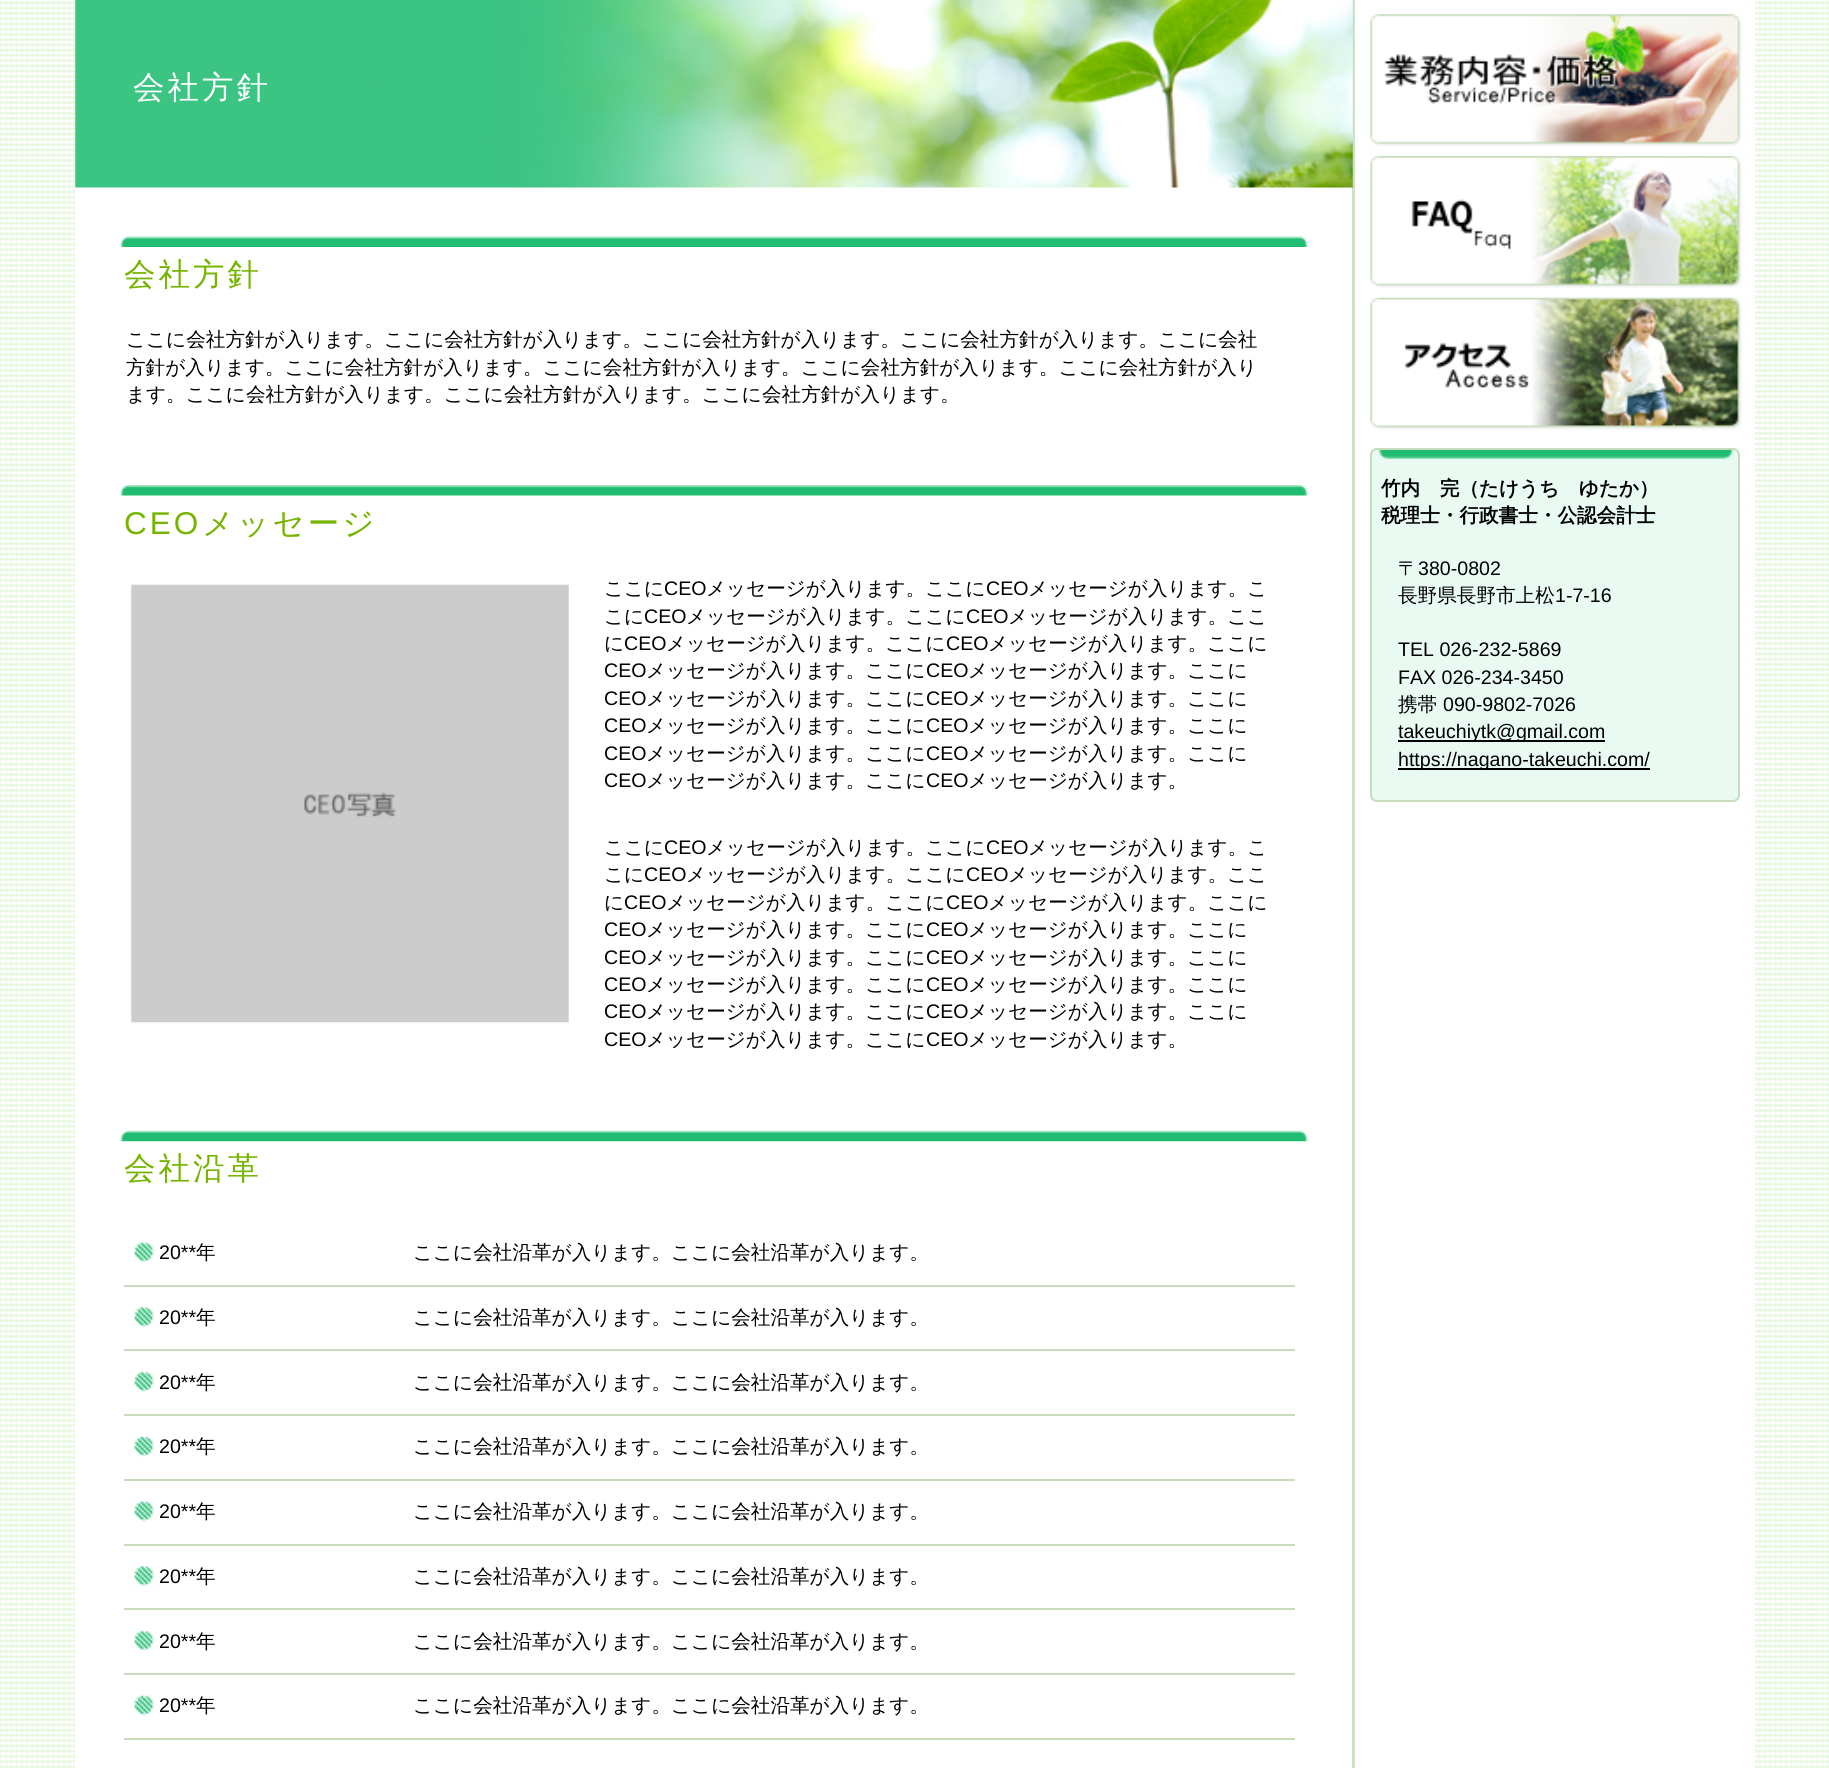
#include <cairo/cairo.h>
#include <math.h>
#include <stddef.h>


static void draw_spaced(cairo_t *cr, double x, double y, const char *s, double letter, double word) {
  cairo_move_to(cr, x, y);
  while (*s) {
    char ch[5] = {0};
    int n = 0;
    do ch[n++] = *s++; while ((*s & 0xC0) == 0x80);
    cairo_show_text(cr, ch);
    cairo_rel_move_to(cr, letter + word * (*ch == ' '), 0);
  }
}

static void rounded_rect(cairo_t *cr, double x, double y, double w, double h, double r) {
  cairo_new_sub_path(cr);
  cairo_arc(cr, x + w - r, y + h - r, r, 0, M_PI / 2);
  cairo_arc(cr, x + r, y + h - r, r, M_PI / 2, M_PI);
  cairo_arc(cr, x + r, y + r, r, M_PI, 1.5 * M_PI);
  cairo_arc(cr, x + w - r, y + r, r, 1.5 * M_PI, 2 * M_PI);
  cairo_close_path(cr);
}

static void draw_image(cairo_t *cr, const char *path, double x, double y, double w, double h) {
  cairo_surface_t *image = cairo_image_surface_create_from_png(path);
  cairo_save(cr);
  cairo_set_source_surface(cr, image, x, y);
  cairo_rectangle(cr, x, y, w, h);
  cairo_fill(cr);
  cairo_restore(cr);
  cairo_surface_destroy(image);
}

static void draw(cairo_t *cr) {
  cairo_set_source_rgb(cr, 1, 1, 1);
  cairo_paint(cr);
  draw_image(cr, "images/1.png", 0, 0, 1829, 1768);
  cairo_set_source_rgb(cr, 1, 1, 1);
  cairo_rectangle(cr, 75, 0, 1680, 1768);
  cairo_fill(cr);
  cairo_set_source_rgb(cr, 206 / 255.0, 224 / 255.0, 197 / 255.0);
  cairo_rectangle(cr, 1352, 0, 3, 1768);
  cairo_fill(cr);
  draw_image(cr, "images/2.png", 75, 0, 1278, 188);
  draw_image(cr, "images/3.png", 120, 236, 1188, 11);
  draw_image(cr, "images/4.png", 120, 485, 1188, 11);
  draw_image(cr, "images/5.png", 131, 584, 438, 439);
  draw_image(cr, "images/6.png", 120, 1130, 1188, 12);
  draw_image(cr, "images/7.png", 134, 1242, 21, 21);
  cairo_set_source_rgb(cr, 200 / 255.0, 220 / 255.0, 189 / 255.0);
  cairo_rectangle(cr, 124, 1285, 1171, 2);
  cairo_fill(cr);
  draw_image(cr, "images/8.png", 134, 1307, 21, 21);
  cairo_rectangle(cr, 124, 1349, 1171, 2);
  cairo_fill(cr);
  draw_image(cr, "images/9.png", 134, 1371, 21, 21);
  cairo_rectangle(cr, 124, 1414, 1171, 2);
  cairo_fill(cr);
  draw_image(cr, "images/10.png", 134, 1436, 21, 21);
  cairo_rectangle(cr, 124, 1479, 1171, 2);
  cairo_fill(cr);
  draw_image(cr, "images/7.png", 134, 1501, 21, 21);
  cairo_rectangle(cr, 124, 1544, 1171, 2);
  cairo_fill(cr);
  draw_image(cr, "images/8.png", 134, 1566, 21, 21);
  cairo_rectangle(cr, 124, 1608, 1171, 2);
  cairo_fill(cr);
  draw_image(cr, "images/9.png", 134, 1630, 21, 21);
  cairo_rectangle(cr, 124, 1673, 1171, 2);
  cairo_fill(cr);
  draw_image(cr, "images/10.png", 134, 1695, 21, 21);
  cairo_rectangle(cr, 124, 1738, 1171, 2);
  cairo_fill(cr);
  draw_image(cr, "images/11.png", 1370, 14, 372, 132);
  draw_image(cr, "images/12.png", 1370, 156, 372, 132);
  draw_image(cr, "images/13.png", 1370, 297, 372, 133);
  cairo_set_source_rgb(cr, 233 / 255.0, 250 / 255.0, 242 / 255.0);
  rounded_rect(cr, 1370, 448, 370, 354, 7);
  cairo_fill(cr);
  draw_image(cr, "images/14.png", 1379, 450, 354, 9);
  rounded_rect(cr, 1371, 449, 368, 352, 6);
  cairo_set_source_rgb(cr, 200 / 255.0, 220 / 255.0, 189 / 255.0);
  cairo_stroke(cr);
  cairo_set_source_rgb(cr, 0, 0, 0);
  cairo_rectangle(cr, 1398, 740, 207, 2);
  cairo_fill(cr);
  cairo_rectangle(cr, 1398, 768, 252, 2);
  cairo_fill(cr);
  cairo_select_font_face(cr, "WenQuanYi Zen Hei Medium", CAIRO_FONT_SLANT_NORMAL, CAIRO_FONT_WEIGHT_NORMAL);
  cairo_set_font_size(cr, 31.5);
  cairo_set_source_rgb(cr, 1, 1, 1);
  draw_spaced(cr, 133, 98, "会社方針", 3, 0);
  cairo_set_source_rgb(cr, 117 / 255.0, 180 / 255.0, 0);
  draw_spaced(cr, 124, 285, "会社方針", 3, 0);
  cairo_set_font_size(cr, 19.6);
  cairo_set_source_rgb(cr, 0, 0, 0);
  cairo_move_to(cr, 126, 346);
  cairo_show_text(cr, "ここに会社方針が入ります。ここに会社方針が入ります。ここに会社方針が入ります。ここに会社方針が入ります。ここに会社");
  cairo_move_to(cr, 126, 374);
  cairo_show_text(cr, "方針が入ります。ここに会社方針が入ります。ここに会社方針が入ります。ここに会社方針が入ります。ここに会社方針が入り");
  cairo_move_to(cr, 126, 401);
  cairo_show_text(cr, "ます。ここに会社方針が入ります。ここに会社方針が入ります。ここに会社方針が入ります。");
  cairo_select_font_face(cr, "Liberation Sans", CAIRO_FONT_SLANT_NORMAL, CAIRO_FONT_WEIGHT_NORMAL);
  cairo_set_font_size(cr, 31.5);
  cairo_set_source_rgb(cr, 117 / 255.0, 180 / 255.0, 0);
  draw_spaced(cr, 124, 534, "CEO", 3, 0);
  cairo_select_font_face(cr, "WenQuanYi Zen Hei Medium", CAIRO_FONT_SLANT_NORMAL, CAIRO_FONT_WEIGHT_NORMAL);
  draw_spaced(cr, 202, 534, "メッセージ", 3, 0);
  cairo_set_font_size(cr, 19.6);
  cairo_set_source_rgb(cr, 0, 0, 0);
  cairo_move_to(cr, 604, 595);
  cairo_show_text(cr, "ここに");
  cairo_select_font_face(cr, "Liberation Sans", CAIRO_FONT_SLANT_NORMAL, CAIRO_FONT_WEIGHT_NORMAL);
  cairo_move_to(cr, 664, 595);
  cairo_show_text(cr, "CEO");
  cairo_select_font_face(cr, "WenQuanYi Zen Hei Medium", CAIRO_FONT_SLANT_NORMAL, CAIRO_FONT_WEIGHT_NORMAL);
  cairo_move_to(cr, 706, 595);
  cairo_show_text(cr, "メッセージが入ります。ここに");
  cairo_select_font_face(cr, "Liberation Sans", CAIRO_FONT_SLANT_NORMAL, CAIRO_FONT_WEIGHT_NORMAL);
  cairo_move_to(cr, 986, 595);
  cairo_show_text(cr, "CEO");
  cairo_select_font_face(cr, "WenQuanYi Zen Hei Medium", CAIRO_FONT_SLANT_NORMAL, CAIRO_FONT_WEIGHT_NORMAL);
  cairo_move_to(cr, 1028, 595);
  cairo_show_text(cr, "メッセージが入ります。こ");
  cairo_move_to(cr, 604, 623);
  cairo_show_text(cr, "こに");
  cairo_select_font_face(cr, "Liberation Sans", CAIRO_FONT_SLANT_NORMAL, CAIRO_FONT_WEIGHT_NORMAL);
  cairo_move_to(cr, 644, 623);
  cairo_show_text(cr, "CEO");
  cairo_select_font_face(cr, "WenQuanYi Zen Hei Medium", CAIRO_FONT_SLANT_NORMAL, CAIRO_FONT_WEIGHT_NORMAL);
  cairo_move_to(cr, 686, 623);
  cairo_show_text(cr, "メッセージが入ります。ここに");
  cairo_select_font_face(cr, "Liberation Sans", CAIRO_FONT_SLANT_NORMAL, CAIRO_FONT_WEIGHT_NORMAL);
  cairo_move_to(cr, 966, 623);
  cairo_show_text(cr, "CEO");
  cairo_select_font_face(cr, "WenQuanYi Zen Hei Medium", CAIRO_FONT_SLANT_NORMAL, CAIRO_FONT_WEIGHT_NORMAL);
  cairo_move_to(cr, 1008, 623);
  cairo_show_text(cr, "メッセージが入ります。ここ");
  cairo_move_to(cr, 604, 650);
  cairo_show_text(cr, "に");
  cairo_select_font_face(cr, "Liberation Sans", CAIRO_FONT_SLANT_NORMAL, CAIRO_FONT_WEIGHT_NORMAL);
  cairo_move_to(cr, 624, 650);
  cairo_show_text(cr, "CEO");
  cairo_select_font_face(cr, "WenQuanYi Zen Hei Medium", CAIRO_FONT_SLANT_NORMAL, CAIRO_FONT_WEIGHT_NORMAL);
  cairo_move_to(cr, 666, 650);
  cairo_show_text(cr, "メッセージが入ります。ここに");
  cairo_select_font_face(cr, "Liberation Sans", CAIRO_FONT_SLANT_NORMAL, CAIRO_FONT_WEIGHT_NORMAL);
  cairo_move_to(cr, 946, 650);
  cairo_show_text(cr, "CEO");
  cairo_select_font_face(cr, "WenQuanYi Zen Hei Medium", CAIRO_FONT_SLANT_NORMAL, CAIRO_FONT_WEIGHT_NORMAL);
  cairo_move_to(cr, 988, 650);
  cairo_show_text(cr, "メッセージが入ります。ここに");
  cairo_select_font_face(cr, "Liberation Sans", CAIRO_FONT_SLANT_NORMAL, CAIRO_FONT_WEIGHT_NORMAL);
  cairo_move_to(cr, 604, 677);
  cairo_show_text(cr, "CEO");
  cairo_select_font_face(cr, "WenQuanYi Zen Hei Medium", CAIRO_FONT_SLANT_NORMAL, CAIRO_FONT_WEIGHT_NORMAL);
  cairo_move_to(cr, 646, 677);
  cairo_show_text(cr, "メッセージが入ります。ここに");
  cairo_select_font_face(cr, "Liberation Sans", CAIRO_FONT_SLANT_NORMAL, CAIRO_FONT_WEIGHT_NORMAL);
  cairo_move_to(cr, 926, 677);
  cairo_show_text(cr, "CEO");
  cairo_select_font_face(cr, "WenQuanYi Zen Hei Medium", CAIRO_FONT_SLANT_NORMAL, CAIRO_FONT_WEIGHT_NORMAL);
  cairo_move_to(cr, 968, 677);
  cairo_show_text(cr, "メッセージが入ります。ここに");
  cairo_select_font_face(cr, "Liberation Sans", CAIRO_FONT_SLANT_NORMAL, CAIRO_FONT_WEIGHT_NORMAL);
  cairo_move_to(cr, 604, 705);
  cairo_show_text(cr, "CEO");
  cairo_select_font_face(cr, "WenQuanYi Zen Hei Medium", CAIRO_FONT_SLANT_NORMAL, CAIRO_FONT_WEIGHT_NORMAL);
  cairo_move_to(cr, 646, 705);
  cairo_show_text(cr, "メッセージが入ります。ここに");
  cairo_select_font_face(cr, "Liberation Sans", CAIRO_FONT_SLANT_NORMAL, CAIRO_FONT_WEIGHT_NORMAL);
  cairo_move_to(cr, 926, 705);
  cairo_show_text(cr, "CEO");
  cairo_select_font_face(cr, "WenQuanYi Zen Hei Medium", CAIRO_FONT_SLANT_NORMAL, CAIRO_FONT_WEIGHT_NORMAL);
  cairo_move_to(cr, 968, 705);
  cairo_show_text(cr, "メッセージが入ります。ここに");
  cairo_select_font_face(cr, "Liberation Sans", CAIRO_FONT_SLANT_NORMAL, CAIRO_FONT_WEIGHT_NORMAL);
  cairo_move_to(cr, 604, 732);
  cairo_show_text(cr, "CEO");
  cairo_select_font_face(cr, "WenQuanYi Zen Hei Medium", CAIRO_FONT_SLANT_NORMAL, CAIRO_FONT_WEIGHT_NORMAL);
  cairo_move_to(cr, 646, 732);
  cairo_show_text(cr, "メッセージが入ります。ここに");
  cairo_select_font_face(cr, "Liberation Sans", CAIRO_FONT_SLANT_NORMAL, CAIRO_FONT_WEIGHT_NORMAL);
  cairo_move_to(cr, 926, 732);
  cairo_show_text(cr, "CEO");
  cairo_select_font_face(cr, "WenQuanYi Zen Hei Medium", CAIRO_FONT_SLANT_NORMAL, CAIRO_FONT_WEIGHT_NORMAL);
  cairo_move_to(cr, 968, 732);
  cairo_show_text(cr, "メッセージが入ります。ここに");
  cairo_select_font_face(cr, "Liberation Sans", CAIRO_FONT_SLANT_NORMAL, CAIRO_FONT_WEIGHT_NORMAL);
  cairo_move_to(cr, 604, 760);
  cairo_show_text(cr, "CEO");
  cairo_select_font_face(cr, "WenQuanYi Zen Hei Medium", CAIRO_FONT_SLANT_NORMAL, CAIRO_FONT_WEIGHT_NORMAL);
  cairo_move_to(cr, 646, 760);
  cairo_show_text(cr, "メッセージが入ります。ここに");
  cairo_select_font_face(cr, "Liberation Sans", CAIRO_FONT_SLANT_NORMAL, CAIRO_FONT_WEIGHT_NORMAL);
  cairo_move_to(cr, 926, 760);
  cairo_show_text(cr, "CEO");
  cairo_select_font_face(cr, "WenQuanYi Zen Hei Medium", CAIRO_FONT_SLANT_NORMAL, CAIRO_FONT_WEIGHT_NORMAL);
  cairo_move_to(cr, 968, 760);
  cairo_show_text(cr, "メッセージが入ります。ここに");
  cairo_select_font_face(cr, "Liberation Sans", CAIRO_FONT_SLANT_NORMAL, CAIRO_FONT_WEIGHT_NORMAL);
  cairo_move_to(cr, 604, 787);
  cairo_show_text(cr, "CEO");
  cairo_select_font_face(cr, "WenQuanYi Zen Hei Medium", CAIRO_FONT_SLANT_NORMAL, CAIRO_FONT_WEIGHT_NORMAL);
  cairo_move_to(cr, 646, 787);
  cairo_show_text(cr, "メッセージが入ります。ここに");
  cairo_select_font_face(cr, "Liberation Sans", CAIRO_FONT_SLANT_NORMAL, CAIRO_FONT_WEIGHT_NORMAL);
  cairo_move_to(cr, 926, 787);
  cairo_show_text(cr, "CEO");
  cairo_select_font_face(cr, "WenQuanYi Zen Hei Medium", CAIRO_FONT_SLANT_NORMAL, CAIRO_FONT_WEIGHT_NORMAL);
  cairo_move_to(cr, 968, 787);
  cairo_show_text(cr, "メッセージが入ります。");
  cairo_move_to(cr, 604, 854);
  cairo_show_text(cr, "ここに");
  cairo_select_font_face(cr, "Liberation Sans", CAIRO_FONT_SLANT_NORMAL, CAIRO_FONT_WEIGHT_NORMAL);
  cairo_move_to(cr, 664, 854);
  cairo_show_text(cr, "CEO");
  cairo_select_font_face(cr, "WenQuanYi Zen Hei Medium", CAIRO_FONT_SLANT_NORMAL, CAIRO_FONT_WEIGHT_NORMAL);
  cairo_move_to(cr, 706, 854);
  cairo_show_text(cr, "メッセージが入ります。ここに");
  cairo_select_font_face(cr, "Liberation Sans", CAIRO_FONT_SLANT_NORMAL, CAIRO_FONT_WEIGHT_NORMAL);
  cairo_move_to(cr, 986, 854);
  cairo_show_text(cr, "CEO");
  cairo_select_font_face(cr, "WenQuanYi Zen Hei Medium", CAIRO_FONT_SLANT_NORMAL, CAIRO_FONT_WEIGHT_NORMAL);
  cairo_move_to(cr, 1028, 854);
  cairo_show_text(cr, "メッセージが入ります。こ");
  cairo_move_to(cr, 604, 881);
  cairo_show_text(cr, "こに");
  cairo_select_font_face(cr, "Liberation Sans", CAIRO_FONT_SLANT_NORMAL, CAIRO_FONT_WEIGHT_NORMAL);
  cairo_move_to(cr, 644, 881);
  cairo_show_text(cr, "CEO");
  cairo_select_font_face(cr, "WenQuanYi Zen Hei Medium", CAIRO_FONT_SLANT_NORMAL, CAIRO_FONT_WEIGHT_NORMAL);
  cairo_move_to(cr, 686, 881);
  cairo_show_text(cr, "メッセージが入ります。ここに");
  cairo_select_font_face(cr, "Liberation Sans", CAIRO_FONT_SLANT_NORMAL, CAIRO_FONT_WEIGHT_NORMAL);
  cairo_move_to(cr, 966, 881);
  cairo_show_text(cr, "CEO");
  cairo_select_font_face(cr, "WenQuanYi Zen Hei Medium", CAIRO_FONT_SLANT_NORMAL, CAIRO_FONT_WEIGHT_NORMAL);
  cairo_move_to(cr, 1008, 881);
  cairo_show_text(cr, "メッセージが入ります。ここ");
  cairo_move_to(cr, 604, 909);
  cairo_show_text(cr, "に");
  cairo_select_font_face(cr, "Liberation Sans", CAIRO_FONT_SLANT_NORMAL, CAIRO_FONT_WEIGHT_NORMAL);
  cairo_move_to(cr, 624, 909);
  cairo_show_text(cr, "CEO");
  cairo_select_font_face(cr, "WenQuanYi Zen Hei Medium", CAIRO_FONT_SLANT_NORMAL, CAIRO_FONT_WEIGHT_NORMAL);
  cairo_move_to(cr, 666, 909);
  cairo_show_text(cr, "メッセージが入ります。ここに");
  cairo_select_font_face(cr, "Liberation Sans", CAIRO_FONT_SLANT_NORMAL, CAIRO_FONT_WEIGHT_NORMAL);
  cairo_move_to(cr, 946, 909);
  cairo_show_text(cr, "CEO");
  cairo_select_font_face(cr, "WenQuanYi Zen Hei Medium", CAIRO_FONT_SLANT_NORMAL, CAIRO_FONT_WEIGHT_NORMAL);
  cairo_move_to(cr, 988, 909);
  cairo_show_text(cr, "メッセージが入ります。ここに");
  cairo_select_font_face(cr, "Liberation Sans", CAIRO_FONT_SLANT_NORMAL, CAIRO_FONT_WEIGHT_NORMAL);
  cairo_move_to(cr, 604, 936);
  cairo_show_text(cr, "CEO");
  cairo_select_font_face(cr, "WenQuanYi Zen Hei Medium", CAIRO_FONT_SLANT_NORMAL, CAIRO_FONT_WEIGHT_NORMAL);
  cairo_move_to(cr, 646, 936);
  cairo_show_text(cr, "メッセージが入ります。ここに");
  cairo_select_font_face(cr, "Liberation Sans", CAIRO_FONT_SLANT_NORMAL, CAIRO_FONT_WEIGHT_NORMAL);
  cairo_move_to(cr, 926, 936);
  cairo_show_text(cr, "CEO");
  cairo_select_font_face(cr, "WenQuanYi Zen Hei Medium", CAIRO_FONT_SLANT_NORMAL, CAIRO_FONT_WEIGHT_NORMAL);
  cairo_move_to(cr, 968, 936);
  cairo_show_text(cr, "メッセージが入ります。ここに");
  cairo_select_font_face(cr, "Liberation Sans", CAIRO_FONT_SLANT_NORMAL, CAIRO_FONT_WEIGHT_NORMAL);
  cairo_move_to(cr, 604, 964);
  cairo_show_text(cr, "CEO");
  cairo_select_font_face(cr, "WenQuanYi Zen Hei Medium", CAIRO_FONT_SLANT_NORMAL, CAIRO_FONT_WEIGHT_NORMAL);
  cairo_move_to(cr, 646, 964);
  cairo_show_text(cr, "メッセージが入ります。ここに");
  cairo_select_font_face(cr, "Liberation Sans", CAIRO_FONT_SLANT_NORMAL, CAIRO_FONT_WEIGHT_NORMAL);
  cairo_move_to(cr, 926, 964);
  cairo_show_text(cr, "CEO");
  cairo_select_font_face(cr, "WenQuanYi Zen Hei Medium", CAIRO_FONT_SLANT_NORMAL, CAIRO_FONT_WEIGHT_NORMAL);
  cairo_move_to(cr, 968, 964);
  cairo_show_text(cr, "メッセージが入ります。ここに");
  cairo_select_font_face(cr, "Liberation Sans", CAIRO_FONT_SLANT_NORMAL, CAIRO_FONT_WEIGHT_NORMAL);
  cairo_move_to(cr, 604, 991);
  cairo_show_text(cr, "CEO");
  cairo_select_font_face(cr, "WenQuanYi Zen Hei Medium", CAIRO_FONT_SLANT_NORMAL, CAIRO_FONT_WEIGHT_NORMAL);
  cairo_move_to(cr, 646, 991);
  cairo_show_text(cr, "メッセージが入ります。ここに");
  cairo_select_font_face(cr, "Liberation Sans", CAIRO_FONT_SLANT_NORMAL, CAIRO_FONT_WEIGHT_NORMAL);
  cairo_move_to(cr, 926, 991);
  cairo_show_text(cr, "CEO");
  cairo_select_font_face(cr, "WenQuanYi Zen Hei Medium", CAIRO_FONT_SLANT_NORMAL, CAIRO_FONT_WEIGHT_NORMAL);
  cairo_move_to(cr, 968, 991);
  cairo_show_text(cr, "メッセージが入ります。ここに");
  cairo_select_font_face(cr, "Liberation Sans", CAIRO_FONT_SLANT_NORMAL, CAIRO_FONT_WEIGHT_NORMAL);
  cairo_move_to(cr, 604, 1018);
  cairo_show_text(cr, "CEO");
  cairo_select_font_face(cr, "WenQuanYi Zen Hei Medium", CAIRO_FONT_SLANT_NORMAL, CAIRO_FONT_WEIGHT_NORMAL);
  cairo_move_to(cr, 646, 1018);
  cairo_show_text(cr, "メッセージが入ります。ここに");
  cairo_select_font_face(cr, "Liberation Sans", CAIRO_FONT_SLANT_NORMAL, CAIRO_FONT_WEIGHT_NORMAL);
  cairo_move_to(cr, 926, 1018);
  cairo_show_text(cr, "CEO");
  cairo_select_font_face(cr, "WenQuanYi Zen Hei Medium", CAIRO_FONT_SLANT_NORMAL, CAIRO_FONT_WEIGHT_NORMAL);
  cairo_move_to(cr, 968, 1018);
  cairo_show_text(cr, "メッセージが入ります。ここに");
  cairo_select_font_face(cr, "Liberation Sans", CAIRO_FONT_SLANT_NORMAL, CAIRO_FONT_WEIGHT_NORMAL);
  cairo_move_to(cr, 604, 1046);
  cairo_show_text(cr, "CEO");
  cairo_select_font_face(cr, "WenQuanYi Zen Hei Medium", CAIRO_FONT_SLANT_NORMAL, CAIRO_FONT_WEIGHT_NORMAL);
  cairo_move_to(cr, 646, 1046);
  cairo_show_text(cr, "メッセージが入ります。ここに");
  cairo_select_font_face(cr, "Liberation Sans", CAIRO_FONT_SLANT_NORMAL, CAIRO_FONT_WEIGHT_NORMAL);
  cairo_move_to(cr, 926, 1046);
  cairo_show_text(cr, "CEO");
  cairo_select_font_face(cr, "WenQuanYi Zen Hei Medium", CAIRO_FONT_SLANT_NORMAL, CAIRO_FONT_WEIGHT_NORMAL);
  cairo_move_to(cr, 968, 1046);
  cairo_show_text(cr, "メッセージが入ります。");
  cairo_set_font_size(cr, 31.5);
  cairo_set_source_rgb(cr, 117 / 255.0, 180 / 255.0, 0);
  draw_spaced(cr, 124, 1179, "会社沿革", 3, 0);
  cairo_select_font_face(cr, "Liberation Sans", CAIRO_FONT_SLANT_NORMAL, CAIRO_FONT_WEIGHT_NORMAL);
  cairo_set_font_size(cr, 19.6);
  cairo_set_source_rgb(cr, 0, 0, 0);
  cairo_move_to(cr, 159, 1259);
  cairo_show_text(cr, "20**");
  cairo_select_font_face(cr, "WenQuanYi Zen Hei Medium", CAIRO_FONT_SLANT_NORMAL, CAIRO_FONT_WEIGHT_NORMAL);
  cairo_move_to(cr, 196, 1259);
  cairo_show_text(cr, "年");
  cairo_move_to(cr, 413, 1259);
  cairo_show_text(cr, "ここに会社沿革が入ります。ここに会社沿革が入ります。");
  cairo_select_font_face(cr, "Liberation Sans", CAIRO_FONT_SLANT_NORMAL, CAIRO_FONT_WEIGHT_NORMAL);
  cairo_move_to(cr, 159, 1324);
  cairo_show_text(cr, "20**");
  cairo_select_font_face(cr, "WenQuanYi Zen Hei Medium", CAIRO_FONT_SLANT_NORMAL, CAIRO_FONT_WEIGHT_NORMAL);
  cairo_move_to(cr, 196, 1324);
  cairo_show_text(cr, "年");
  cairo_move_to(cr, 413, 1324);
  cairo_show_text(cr, "ここに会社沿革が入ります。ここに会社沿革が入ります。");
  cairo_select_font_face(cr, "Liberation Sans", CAIRO_FONT_SLANT_NORMAL, CAIRO_FONT_WEIGHT_NORMAL);
  cairo_move_to(cr, 159, 1389);
  cairo_show_text(cr, "20**");
  cairo_select_font_face(cr, "WenQuanYi Zen Hei Medium", CAIRO_FONT_SLANT_NORMAL, CAIRO_FONT_WEIGHT_NORMAL);
  cairo_move_to(cr, 196, 1389);
  cairo_show_text(cr, "年");
  cairo_move_to(cr, 413, 1389);
  cairo_show_text(cr, "ここに会社沿革が入ります。ここに会社沿革が入ります。");
  cairo_select_font_face(cr, "Liberation Sans", CAIRO_FONT_SLANT_NORMAL, CAIRO_FONT_WEIGHT_NORMAL);
  cairo_move_to(cr, 159, 1453);
  cairo_show_text(cr, "20**");
  cairo_select_font_face(cr, "WenQuanYi Zen Hei Medium", CAIRO_FONT_SLANT_NORMAL, CAIRO_FONT_WEIGHT_NORMAL);
  cairo_move_to(cr, 196, 1453);
  cairo_show_text(cr, "年");
  cairo_move_to(cr, 413, 1453);
  cairo_show_text(cr, "ここに会社沿革が入ります。ここに会社沿革が入ります。");
  cairo_select_font_face(cr, "Liberation Sans", CAIRO_FONT_SLANT_NORMAL, CAIRO_FONT_WEIGHT_NORMAL);
  cairo_move_to(cr, 159, 1518);
  cairo_show_text(cr, "20**");
  cairo_select_font_face(cr, "WenQuanYi Zen Hei Medium", CAIRO_FONT_SLANT_NORMAL, CAIRO_FONT_WEIGHT_NORMAL);
  cairo_move_to(cr, 196, 1518);
  cairo_show_text(cr, "年");
  cairo_move_to(cr, 413, 1518);
  cairo_show_text(cr, "ここに会社沿革が入ります。ここに会社沿革が入ります。");
  cairo_select_font_face(cr, "Liberation Sans", CAIRO_FONT_SLANT_NORMAL, CAIRO_FONT_WEIGHT_NORMAL);
  cairo_move_to(cr, 159, 1583);
  cairo_show_text(cr, "20**");
  cairo_select_font_face(cr, "WenQuanYi Zen Hei Medium", CAIRO_FONT_SLANT_NORMAL, CAIRO_FONT_WEIGHT_NORMAL);
  cairo_move_to(cr, 196, 1583);
  cairo_show_text(cr, "年");
  cairo_move_to(cr, 413, 1583);
  cairo_show_text(cr, "ここに会社沿革が入ります。ここに会社沿革が入ります。");
  cairo_select_font_face(cr, "Liberation Sans", CAIRO_FONT_SLANT_NORMAL, CAIRO_FONT_WEIGHT_NORMAL);
  cairo_move_to(cr, 159, 1648);
  cairo_show_text(cr, "20**");
  cairo_select_font_face(cr, "WenQuanYi Zen Hei Medium", CAIRO_FONT_SLANT_NORMAL, CAIRO_FONT_WEIGHT_NORMAL);
  cairo_move_to(cr, 196, 1648);
  cairo_show_text(cr, "年");
  cairo_move_to(cr, 413, 1648);
  cairo_show_text(cr, "ここに会社沿革が入ります。ここに会社沿革が入ります。");
  cairo_select_font_face(cr, "Liberation Sans", CAIRO_FONT_SLANT_NORMAL, CAIRO_FONT_WEIGHT_NORMAL);
  cairo_move_to(cr, 159, 1712);
  cairo_show_text(cr, "20**");
  cairo_select_font_face(cr, "WenQuanYi Zen Hei Medium", CAIRO_FONT_SLANT_NORMAL, CAIRO_FONT_WEIGHT_NORMAL);
  cairo_move_to(cr, 196, 1712);
  cairo_show_text(cr, "年");
  cairo_move_to(cr, 413, 1712);
  cairo_show_text(cr, "ここに会社沿革が入ります。ここに会社沿革が入ります。");
  cairo_select_font_face(cr, "WenQuanYi Zen Hei", CAIRO_FONT_SLANT_NORMAL, CAIRO_FONT_WEIGHT_BOLD);
  cairo_move_to(cr, 1381, 495);
  cairo_show_text(cr, "竹内　完（たけうち　ゆたか）");
  cairo_move_to(cr, 1381, 522);
  cairo_show_text(cr, "税理士・行政書士・公認会計士");
  cairo_select_font_face(cr, "WenQuanYi Zen Hei Medium", CAIRO_FONT_SLANT_NORMAL, CAIRO_FONT_WEIGHT_NORMAL);
  cairo_move_to(cr, 1398, 575);
  cairo_show_text(cr, "〒");
  cairo_select_font_face(cr, "Liberation Sans", CAIRO_FONT_SLANT_NORMAL, CAIRO_FONT_WEIGHT_NORMAL);
  cairo_move_to(cr, 1418, 575);
  cairo_show_text(cr, "380-0802");
  cairo_select_font_face(cr, "WenQuanYi Zen Hei Medium", CAIRO_FONT_SLANT_NORMAL, CAIRO_FONT_WEIGHT_NORMAL);
  cairo_move_to(cr, 1398, 602);
  cairo_show_text(cr, "長野県長野市上松");
  cairo_select_font_face(cr, "Liberation Sans", CAIRO_FONT_SLANT_NORMAL, CAIRO_FONT_WEIGHT_NORMAL);
  cairo_move_to(cr, 1555, 602);
  cairo_show_text(cr, "1-7-16");
  cairo_move_to(cr, 1398, 656);
  cairo_show_text(cr, "TEL 026-232-5869");
  cairo_move_to(cr, 1398, 684);
  cairo_show_text(cr, "FAX 026-234-3450");
  cairo_select_font_face(cr, "WenQuanYi Zen Hei Medium", CAIRO_FONT_SLANT_NORMAL, CAIRO_FONT_WEIGHT_NORMAL);
  cairo_move_to(cr, 1398, 711);
  cairo_show_text(cr, "携帯");
  cairo_select_font_face(cr, "Liberation Sans", CAIRO_FONT_SLANT_NORMAL, CAIRO_FONT_WEIGHT_NORMAL);
  cairo_move_to(cr, 1443, 711);
  cairo_show_text(cr, "090-9802-7026");
  cairo_move_to(cr, 1398, 738);
  cairo_show_text(cr, "takeuchiytk@gmail.com");
  cairo_move_to(cr, 1398, 766);
  cairo_show_text(cr, "https://nagano-takeuchi.com/");
}

int main(void) {
  cairo_surface_t *surface = cairo_image_surface_create(CAIRO_FORMAT_RGB24, 1829, 1768);
  cairo_t *cr = cairo_create(surface);
  cairo_font_options_t *options = cairo_font_options_create();
  cairo_font_options_set_hint_metrics(options, CAIRO_HINT_METRICS_OFF);
  cairo_font_options_set_hint_style(options, CAIRO_HINT_STYLE_NONE);
  cairo_set_font_options(cr, options);
  cairo_set_miter_limit(cr, 4);
  draw(cr);
  cairo_surface_write_to_png(surface, "out.png");
  cairo_font_options_destroy(options);
  cairo_destroy(cr);
  cairo_surface_destroy(surface);
  return 0;
}
